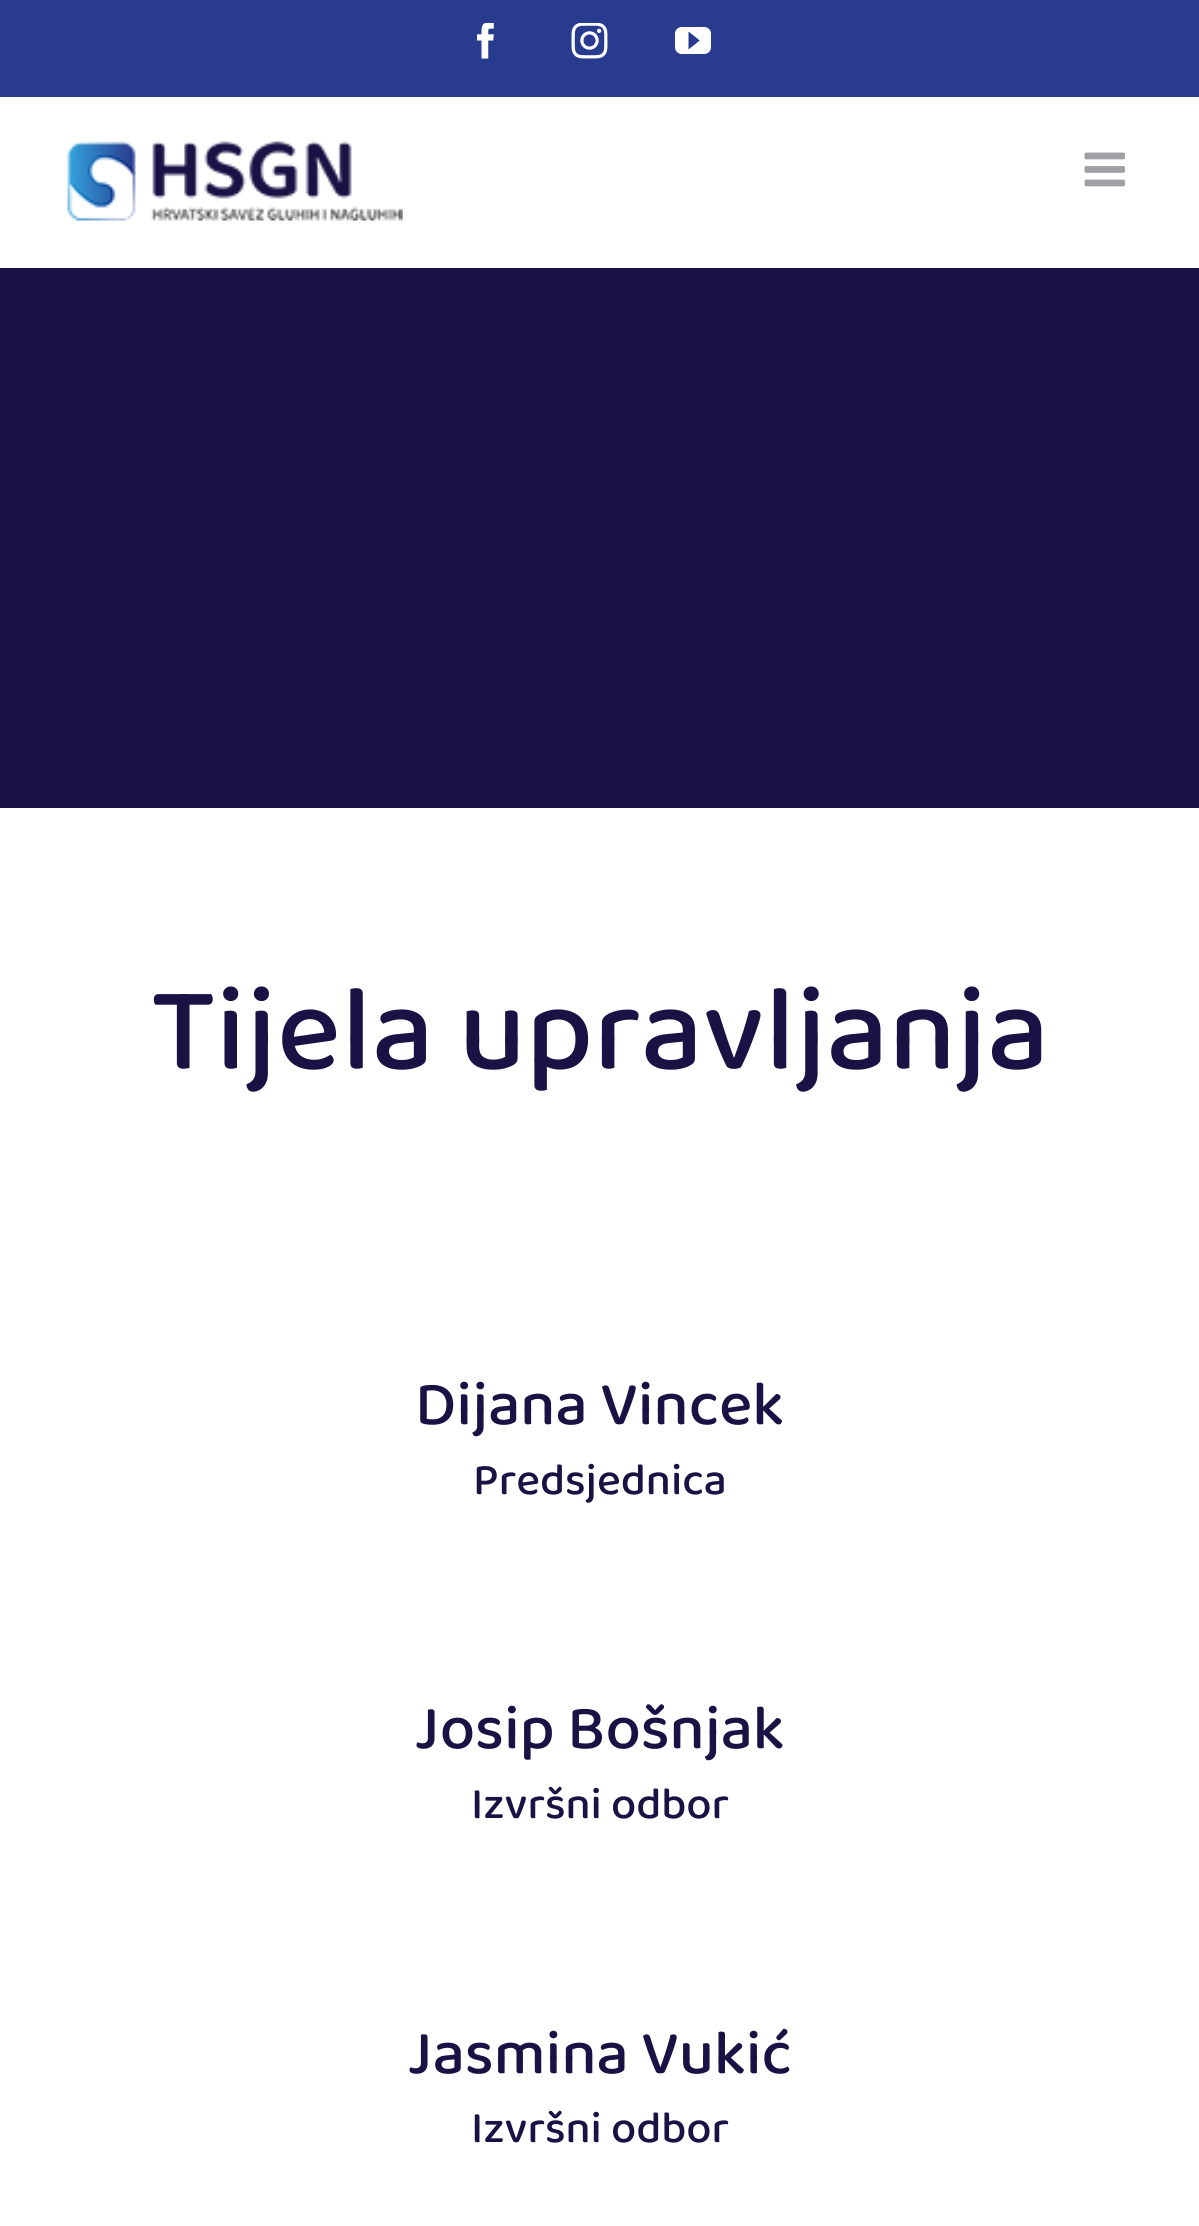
#include <cairo/cairo.h>
#include <math.h>
#include <stddef.h>


static void draw_image(cairo_t *cr, const char *path, double x, double y, double w, double h) {
  cairo_surface_t *image = cairo_image_surface_create_from_png(path);
  cairo_save(cr);
  cairo_set_source_surface(cr, image, x, y);
  cairo_rectangle(cr, x, y, w, h);
  cairo_fill(cr);
  cairo_restore(cr);
  cairo_surface_destroy(image);
}

static void draw(cairo_t *cr) {
  cairo_set_source_rgb(cr, 1, 1, 1);
  cairo_paint(cr);
  cairo_set_source_rgb(cr, 40 / 255.0, 59 / 255.0, 143 / 255.0);
  cairo_rectangle(cr, 0, 0, 1199, 97);
  cairo_fill(cr);
  draw_image(cr, "images/1.png", 477, 23, 17, 36);
  draw_image(cr, "images/2.png", 571, 23, 37, 36);
  draw_image(cr, "images/3.png", 675, 27, 36, 27);
  draw_image(cr, "images/4.png", 67, 141, 336, 80);
  draw_image(cr, "images/5.png", 1084, 152, 41, 35);
  cairo_set_source_rgb(cr, 26 / 255.0, 17 / 255.0, 68 / 255.0);
  cairo_rectangle(cr, 0, 268, 1199, 540);
  cairo_fill(cr);
  cairo_select_font_face(cr, "Baloo Paaji 2 Medium", CAIRO_FONT_SLANT_NORMAL, CAIRO_FONT_WEIGHT_NORMAL);
  cairo_set_font_size(cr, 121.5);
  cairo_move_to(cr, 151, 1068);
  cairo_show_text(cr, "Tijela upravljanja");
  cairo_set_font_size(cr, 63);
  cairo_move_to(cr, 415, 1424);
  cairo_show_text(cr, "Dijana Vincek");
  cairo_set_font_size(cr, 45);
  cairo_move_to(cr, 473, 1494);
  cairo_show_text(cr, "Predsjednica");
  cairo_set_font_size(cr, 63);
  cairo_move_to(cr, 415, 1748);
  cairo_show_text(cr, "Josip Bošnjak");
  cairo_set_font_size(cr, 45);
  cairo_move_to(cr, 471, 1818);
  cairo_show_text(cr, "Izvršni odbor");
  cairo_set_font_size(cr, 63);
  cairo_move_to(cr, 408, 2073);
  cairo_show_text(cr, "Jasmina Vukić");
  cairo_set_font_size(cr, 45);
  cairo_move_to(cr, 471, 2142);
  cairo_show_text(cr, "Izvršni odbor");
}

int main(void) {
  cairo_surface_t *surface = cairo_image_surface_create(CAIRO_FORMAT_RGB24, 1199, 2226);
  cairo_t *cr = cairo_create(surface);
  cairo_font_options_t *options = cairo_font_options_create();
  cairo_font_options_set_hint_metrics(options, CAIRO_HINT_METRICS_OFF);
  cairo_font_options_set_hint_style(options, CAIRO_HINT_STYLE_NONE);
  cairo_set_font_options(cr, options);
  cairo_set_miter_limit(cr, 4);
  draw(cr);
  cairo_surface_write_to_png(surface, "out.png");
  cairo_font_options_destroy(options);
  cairo_destroy(cr);
  cairo_surface_destroy(surface);
  return 0;
}
